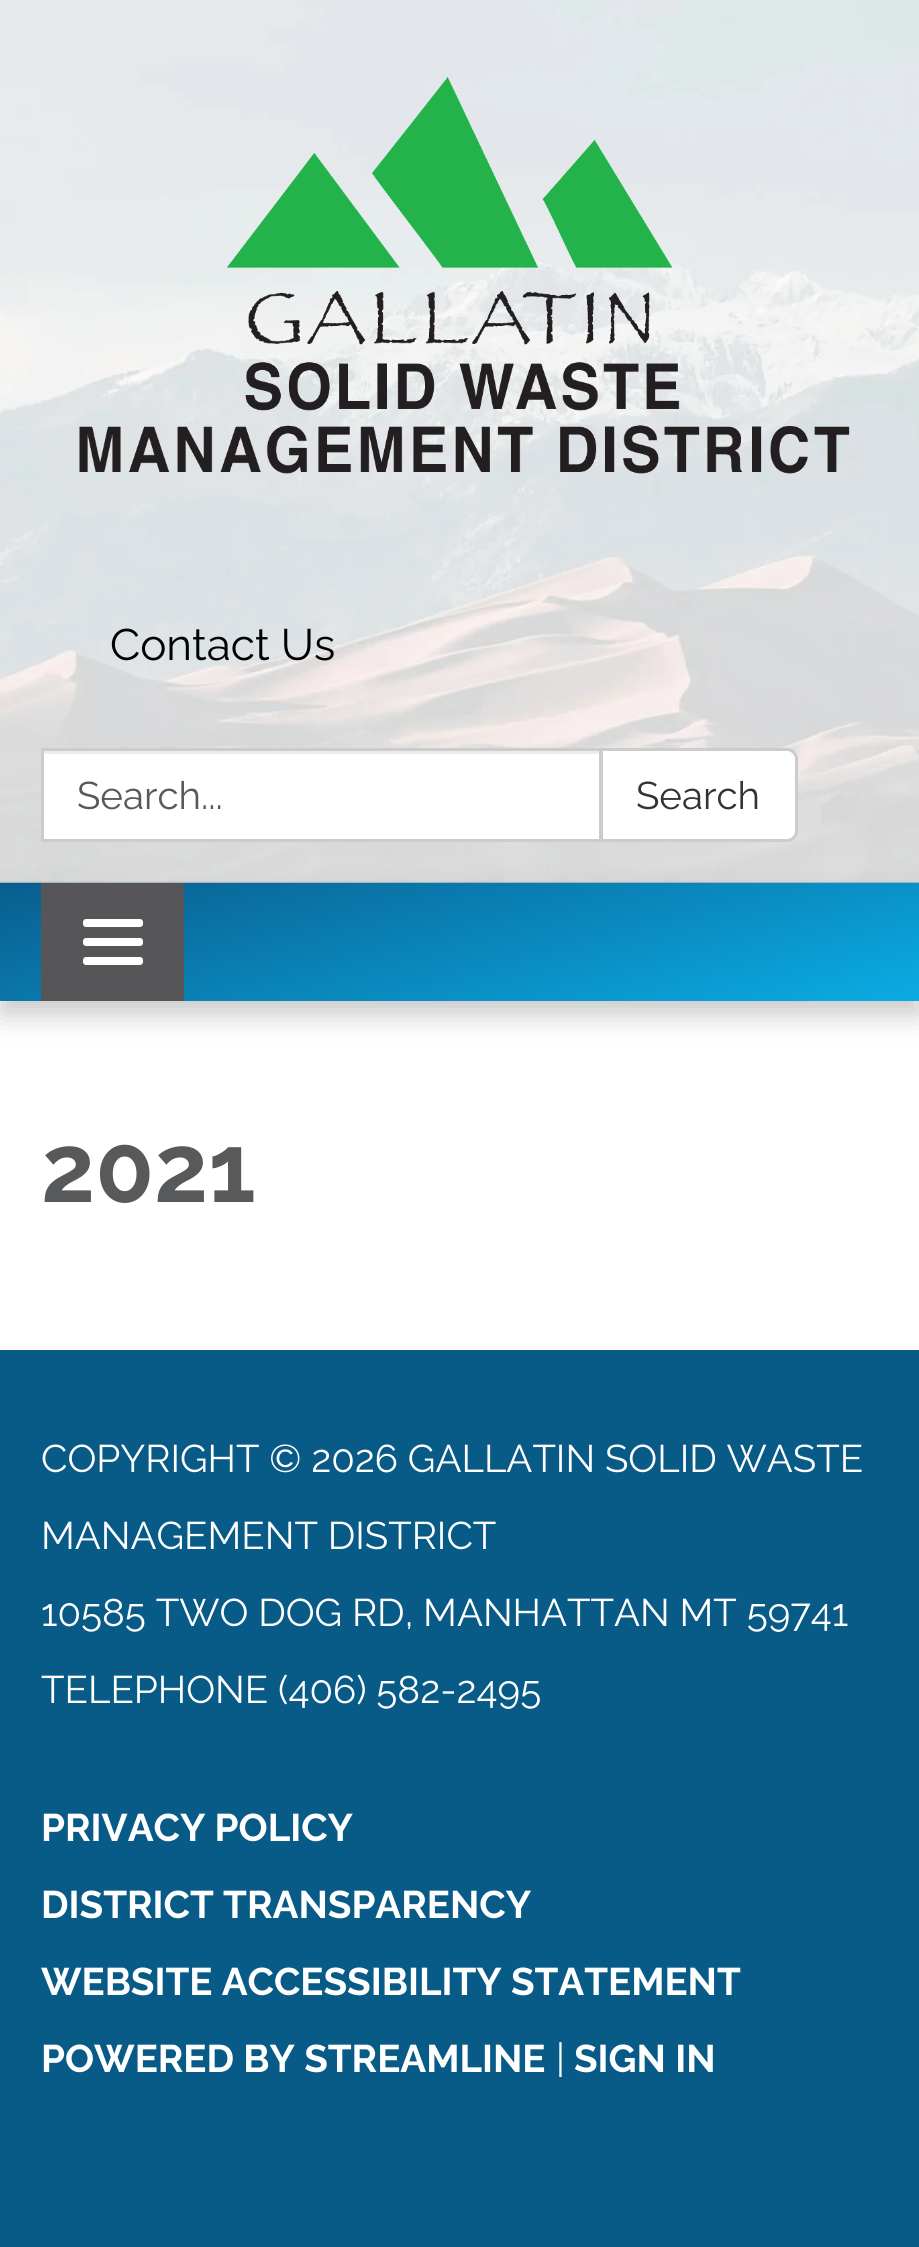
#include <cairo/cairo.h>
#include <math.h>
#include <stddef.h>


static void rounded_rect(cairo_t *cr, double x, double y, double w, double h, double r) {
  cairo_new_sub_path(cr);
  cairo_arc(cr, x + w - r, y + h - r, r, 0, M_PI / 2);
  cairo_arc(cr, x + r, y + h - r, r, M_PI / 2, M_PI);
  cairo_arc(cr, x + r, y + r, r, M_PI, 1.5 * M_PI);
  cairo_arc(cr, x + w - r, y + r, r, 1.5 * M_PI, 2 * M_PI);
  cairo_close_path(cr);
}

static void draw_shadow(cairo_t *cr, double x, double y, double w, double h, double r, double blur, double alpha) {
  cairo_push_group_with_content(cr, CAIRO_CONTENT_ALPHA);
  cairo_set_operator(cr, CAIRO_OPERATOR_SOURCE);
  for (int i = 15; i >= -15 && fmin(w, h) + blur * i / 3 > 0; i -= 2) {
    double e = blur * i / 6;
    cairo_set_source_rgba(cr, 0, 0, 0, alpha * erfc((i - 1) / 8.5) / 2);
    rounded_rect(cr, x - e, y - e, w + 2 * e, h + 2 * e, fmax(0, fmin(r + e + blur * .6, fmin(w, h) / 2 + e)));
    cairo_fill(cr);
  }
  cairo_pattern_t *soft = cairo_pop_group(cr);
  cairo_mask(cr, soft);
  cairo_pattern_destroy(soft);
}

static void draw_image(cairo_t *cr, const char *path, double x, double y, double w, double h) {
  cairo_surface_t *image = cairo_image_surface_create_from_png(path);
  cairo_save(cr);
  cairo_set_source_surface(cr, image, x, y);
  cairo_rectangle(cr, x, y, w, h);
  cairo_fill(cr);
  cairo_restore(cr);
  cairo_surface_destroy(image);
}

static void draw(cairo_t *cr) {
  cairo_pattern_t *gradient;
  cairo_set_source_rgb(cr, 8 / 255.0, 90 / 255.0, 135 / 255.0);
  cairo_paint(cr);
  draw_image(cr, "images/1.png", 0, 0, 919, 883);
  draw_image(cr, "images/2.png", 79, 77, 771, 397);
  cairo_set_source_rgb(cr, 1, 1, 1);
  cairo_rectangle(cr, 44, 754, 555, 85);
  cairo_fill(cr);
  cairo_set_source_rgb(cr, 236 / 255.0, 236 / 255.0, 236 / 255.0);
  cairo_rectangle(cr, 44, 751, 556, 3);
  cairo_fill(cr);
  cairo_rectangle(cr, 42.5, 749.5, 558, 91);
  cairo_set_source_rgb(cr, 204 / 255.0, 204 / 255.0, 204 / 255.0);
  cairo_set_line_width(cr, 3);
  cairo_stroke(cr);
  cairo_set_source_rgb(cr, 1, 1, 1);
  cairo_new_path(cr);
  cairo_move_to(cr, 601.5, 749.5);
  cairo_line_to(cr, 787, 749.5);
  cairo_curve_to(cr, 792, 749.5, 796.5, 754, 796.5, 759);
  cairo_line_to(cr, 796.5, 831);
  cairo_curve_to(cr, 796.5, 836, 792, 840.5, 787, 840.5);
  cairo_line_to(cr, 601.5, 840.5);
  cairo_close_path(cr);
  cairo_fill_preserve(cr);
  cairo_set_source_rgb(cr, 204 / 255.0, 204 / 255.0, 204 / 255.0);
  cairo_stroke(cr);
  cairo_set_source_rgb(cr, 1, 1, 1);
  cairo_rectangle(cr, 0, 1001, 919, 349);
  cairo_fill(cr);
  cairo_set_source_rgb(cr, 0, 0, 0);
  draw_shadow(cr, 0, 897, 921, 118, 0, 14, 0.21);
  gradient = cairo_pattern_create_linear(415, 772, 506, 1112);
  cairo_pattern_add_color_stop_rgba(gradient, 0, 2 / 255.0, 0, 36 / 255.0, 1);
  cairo_pattern_add_color_stop_rgba(gradient, 0, 10 / 255.0, 93 / 255.0, 143 / 255.0, 1);
  cairo_pattern_add_color_stop_rgba(gradient, 1, 10 / 255.0, 172 / 255.0, 227 / 255.0, 1);
  cairo_set_source(cr, gradient);
  cairo_pattern_destroy(gradient);
  cairo_rectangle(cr, 0, 883, 919, 118);
  cairo_fill(cr);
  cairo_set_source_rgb(cr, 86 / 255.0, 86 / 255.0, 88 / 255.0);
  cairo_rectangle(cr, 41, 883, 143, 118);
  cairo_fill(cr);
  cairo_set_source_rgb(cr, 1, 1, 1);
  rounded_rect(cr, 83, 919, 60, 8, 3);
  cairo_fill(cr);
  rounded_rect(cr, 83, 938, 60, 8, 3);
  cairo_fill(cr);
  rounded_rect(cr, 83, 957, 60, 8, 3);
  cairo_fill(cr);
  cairo_select_font_face(cr, "Raleway", CAIRO_FONT_SLANT_NORMAL, CAIRO_FONT_WEIGHT_NORMAL);
  cairo_set_font_size(cr, 44);
  cairo_set_source_rgb(cr, 0, 0, 0);
  cairo_move_to(cr, 110, 660);
  cairo_show_text(cr, "Contact Us");
  cairo_set_font_size(cr, 38.5);
  cairo_set_source_rgb(cr, 88 / 255.0, 89 / 255.0, 91 / 255.0);
  cairo_move_to(cr, 77, 809);
  cairo_show_text(cr, "Search...");
  cairo_set_source_rgb(cr, 51 / 255.0, 51 / 255.0, 51 / 255.0);
  cairo_move_to(cr, 636, 809);
  cairo_show_text(cr, "Search");
  cairo_select_font_face(cr, "Raleway", CAIRO_FONT_SLANT_NORMAL, CAIRO_FONT_WEIGHT_BOLD);
  cairo_set_font_size(cr, 96);
  cairo_set_source_rgb(cr, 88 / 255.0, 89 / 255.0, 91 / 255.0);
  cairo_move_to(cr, 41, 1202);
  cairo_show_text(cr, "2021");
  cairo_select_font_face(cr, "Raleway", CAIRO_FONT_SLANT_NORMAL, CAIRO_FONT_WEIGHT_NORMAL);
  cairo_set_font_size(cr, 38.5);
  cairo_set_source_rgb(cr, 1, 1, 1);
  cairo_move_to(cr, 41, 1472);
  cairo_show_text(cr, "COPYRIGHT © 2026 GALLATIN SOLID WASTE");
  cairo_move_to(cr, 41, 1549);
  cairo_show_text(cr, "MANAGEMENT DISTRICT");
  cairo_move_to(cr, 41, 1626);
  cairo_show_text(cr, "10585 TWO DOG RD, MANHATTAN MT 59741");
  cairo_move_to(cr, 41, 1703);
  cairo_show_text(cr, "TELEPHONE (406) 582-2495");
  cairo_select_font_face(cr, "Raleway", CAIRO_FONT_SLANT_NORMAL, CAIRO_FONT_WEIGHT_BOLD);
  cairo_move_to(cr, 41, 1841);
  cairo_show_text(cr, "PRIVACY POLICY");
  cairo_move_to(cr, 41, 1918);
  cairo_show_text(cr, "DISTRICT TRANSPARENCY");
  cairo_move_to(cr, 41, 1995);
  cairo_show_text(cr, "WEBSITE ACCESSIBILITY STATEMENT");
  cairo_move_to(cr, 41, 2072);
  cairo_show_text(cr, "POWERED BY STREAMLINE");
  cairo_select_font_face(cr, "Raleway", CAIRO_FONT_SLANT_NORMAL, CAIRO_FONT_WEIGHT_NORMAL);
  cairo_move_to(cr, 556, 2072);
  cairo_show_text(cr, "|");
  cairo_select_font_face(cr, "Raleway", CAIRO_FONT_SLANT_NORMAL, CAIRO_FONT_WEIGHT_BOLD);
  cairo_move_to(cr, 574, 2072);
  cairo_show_text(cr, "SIGN IN");
}

int main(void) {
  cairo_surface_t *surface = cairo_image_surface_create(CAIRO_FORMAT_RGB24, 919, 2247);
  cairo_t *cr = cairo_create(surface);
  cairo_font_options_t *options = cairo_font_options_create();
  cairo_font_options_set_hint_metrics(options, CAIRO_HINT_METRICS_OFF);
  cairo_font_options_set_hint_style(options, CAIRO_HINT_STYLE_NONE);
  cairo_set_font_options(cr, options);
  cairo_set_miter_limit(cr, 4);
  draw(cr);
  cairo_surface_write_to_png(surface, "out.png");
  cairo_font_options_destroy(options);
  cairo_destroy(cr);
  cairo_surface_destroy(surface);
  return 0;
}
